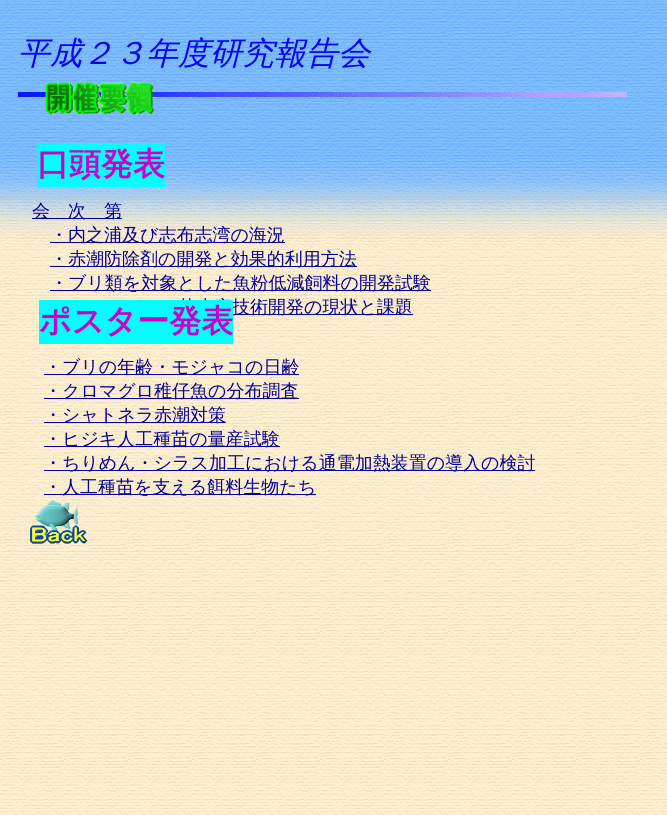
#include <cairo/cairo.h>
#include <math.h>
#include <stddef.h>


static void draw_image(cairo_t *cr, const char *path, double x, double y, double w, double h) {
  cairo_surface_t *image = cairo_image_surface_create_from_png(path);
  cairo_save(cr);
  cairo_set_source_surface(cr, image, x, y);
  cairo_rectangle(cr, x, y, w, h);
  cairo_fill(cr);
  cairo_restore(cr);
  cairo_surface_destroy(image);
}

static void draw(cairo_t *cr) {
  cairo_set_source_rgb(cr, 1, 1, 1);
  cairo_paint(cr);
  draw_image(cr, "images/1.png", 0, 0, 667, 815);
  draw_image(cr, "images/2.png", 18, 92, 609, 5);
  draw_image(cr, "images/3.png", 45, 81, 110, 34);
  cairo_set_source_rgb(cr, 0, 1, 1);
  cairo_rectangle(cr, 37, 143, 128, 44);
  cairo_fill(cr);
  cairo_set_source_rgb(cr, 0, 0, 153 / 255.0);
  cairo_rectangle(cr, 32, 218, 90, 1);
  cairo_fill(cr);
  cairo_rectangle(cr, 50, 242, 235, 1);
  cairo_fill(cr);
  cairo_rectangle(cr, 50, 266, 307, 1);
  cairo_fill(cr);
  cairo_rectangle(cr, 50, 290, 381, 1);
  cairo_fill(cr);
  cairo_rectangle(cr, 233, 314, 180, 1);
  cairo_fill(cr);
  cairo_rectangle(cr, 44, 374, 255, 1);
  cairo_fill(cr);
  cairo_rectangle(cr, 44, 398, 255, 1);
  cairo_fill(cr);
  cairo_rectangle(cr, 44, 422, 182, 1);
  cairo_fill(cr);
  cairo_rectangle(cr, 44, 446, 236, 1);
  cairo_fill(cr);
  cairo_rectangle(cr, 44, 470, 491, 1);
  cairo_fill(cr);
  cairo_rectangle(cr, 44, 494, 272, 1);
  cairo_fill(cr);
  draw_image(cr, "images/4.png", 30, 500, 58, 44);
  cairo_select_font_face(cr, "WenQuanYi Zen Hei Medium", CAIRO_FONT_SLANT_ITALIC, CAIRO_FONT_WEIGHT_NORMAL);
  cairo_set_font_size(cr, 32);
  cairo_set_source_rgb(cr, 0, 0, 1);
  cairo_move_to(cr, 18, 64);
  cairo_show_text(cr, "平成２３年度研究報告会");
  cairo_select_font_face(cr, "WenQuanYi Zen Hei", CAIRO_FONT_SLANT_NORMAL, CAIRO_FONT_WEIGHT_BOLD);
  cairo_set_source_rgb(cr, 204 / 255.0, 0, 204 / 255.0);
  cairo_move_to(cr, 37, 175);
  cairo_show_text(cr, "口頭発表");
  cairo_select_font_face(cr, "WenQuanYi Zen Hei Medium", CAIRO_FONT_SLANT_NORMAL, CAIRO_FONT_WEIGHT_NORMAL);
  cairo_set_font_size(cr, 18);
  cairo_set_source_rgb(cr, 0, 0, 153 / 255.0);
  cairo_move_to(cr, 32, 217);
  cairo_show_text(cr, "会　次　第");
  cairo_move_to(cr, 50, 241);
  cairo_show_text(cr, "・内之浦及び志布志湾の海況");
  cairo_move_to(cr, 50, 265);
  cairo_show_text(cr, "・赤潮防除剤の開発と効果的利用方法");
  cairo_move_to(cr, 50, 289);
  cairo_show_text(cr, "・ブリ類を対象とした魚粉低減飼料の開発試験");
  cairo_move_to(cr, 178, 313);
  cairo_show_text(cr, "苗生産技術開発の現状と課題");
  cairo_set_source_rgb(cr, 0, 1, 1);
  cairo_rectangle(cr, 39, 300, 194, 44);
  cairo_fill(cr);
  cairo_select_font_face(cr, "WenQuanYi Zen Hei", CAIRO_FONT_SLANT_NORMAL, CAIRO_FONT_WEIGHT_BOLD);
  cairo_set_font_size(cr, 32);
  cairo_set_source_rgb(cr, 204 / 255.0, 0, 204 / 255.0);
  cairo_move_to(cr, 39, 332);
  cairo_show_text(cr, "ポスター発表");
  cairo_select_font_face(cr, "WenQuanYi Zen Hei Medium", CAIRO_FONT_SLANT_NORMAL, CAIRO_FONT_WEIGHT_NORMAL);
  cairo_set_font_size(cr, 18);
  cairo_set_source_rgb(cr, 0, 0, 153 / 255.0);
  cairo_move_to(cr, 44, 373);
  cairo_show_text(cr, "・ブリの年齢・モジャコの日齢");
  cairo_move_to(cr, 44, 397);
  cairo_show_text(cr, "・クロマグロ稚仔魚の分布調査");
  cairo_move_to(cr, 44, 421);
  cairo_show_text(cr, "・シャトネラ赤潮対策");
  cairo_move_to(cr, 44, 445);
  cairo_show_text(cr, "・ヒジキ人工種苗の量産試験");
  cairo_move_to(cr, 44, 469);
  cairo_show_text(cr, "・ちりめん・シラス加工における通電加熱装置の導入の検討");
  cairo_move_to(cr, 44, 493);
  cairo_show_text(cr, "・人工種苗を支える餌料生物たち");
}

int main(void) {
  cairo_surface_t *surface = cairo_image_surface_create(CAIRO_FORMAT_RGB24, 667, 815);
  cairo_t *cr = cairo_create(surface);
  cairo_font_options_t *options = cairo_font_options_create();
  cairo_font_options_set_hint_metrics(options, CAIRO_HINT_METRICS_OFF);
  cairo_font_options_set_hint_style(options, CAIRO_HINT_STYLE_NONE);
  cairo_set_font_options(cr, options);
  cairo_set_miter_limit(cr, 4);
  draw(cr);
  cairo_surface_write_to_png(surface, "out.png");
  cairo_font_options_destroy(options);
  cairo_destroy(cr);
  cairo_surface_destroy(surface);
  return 0;
}
